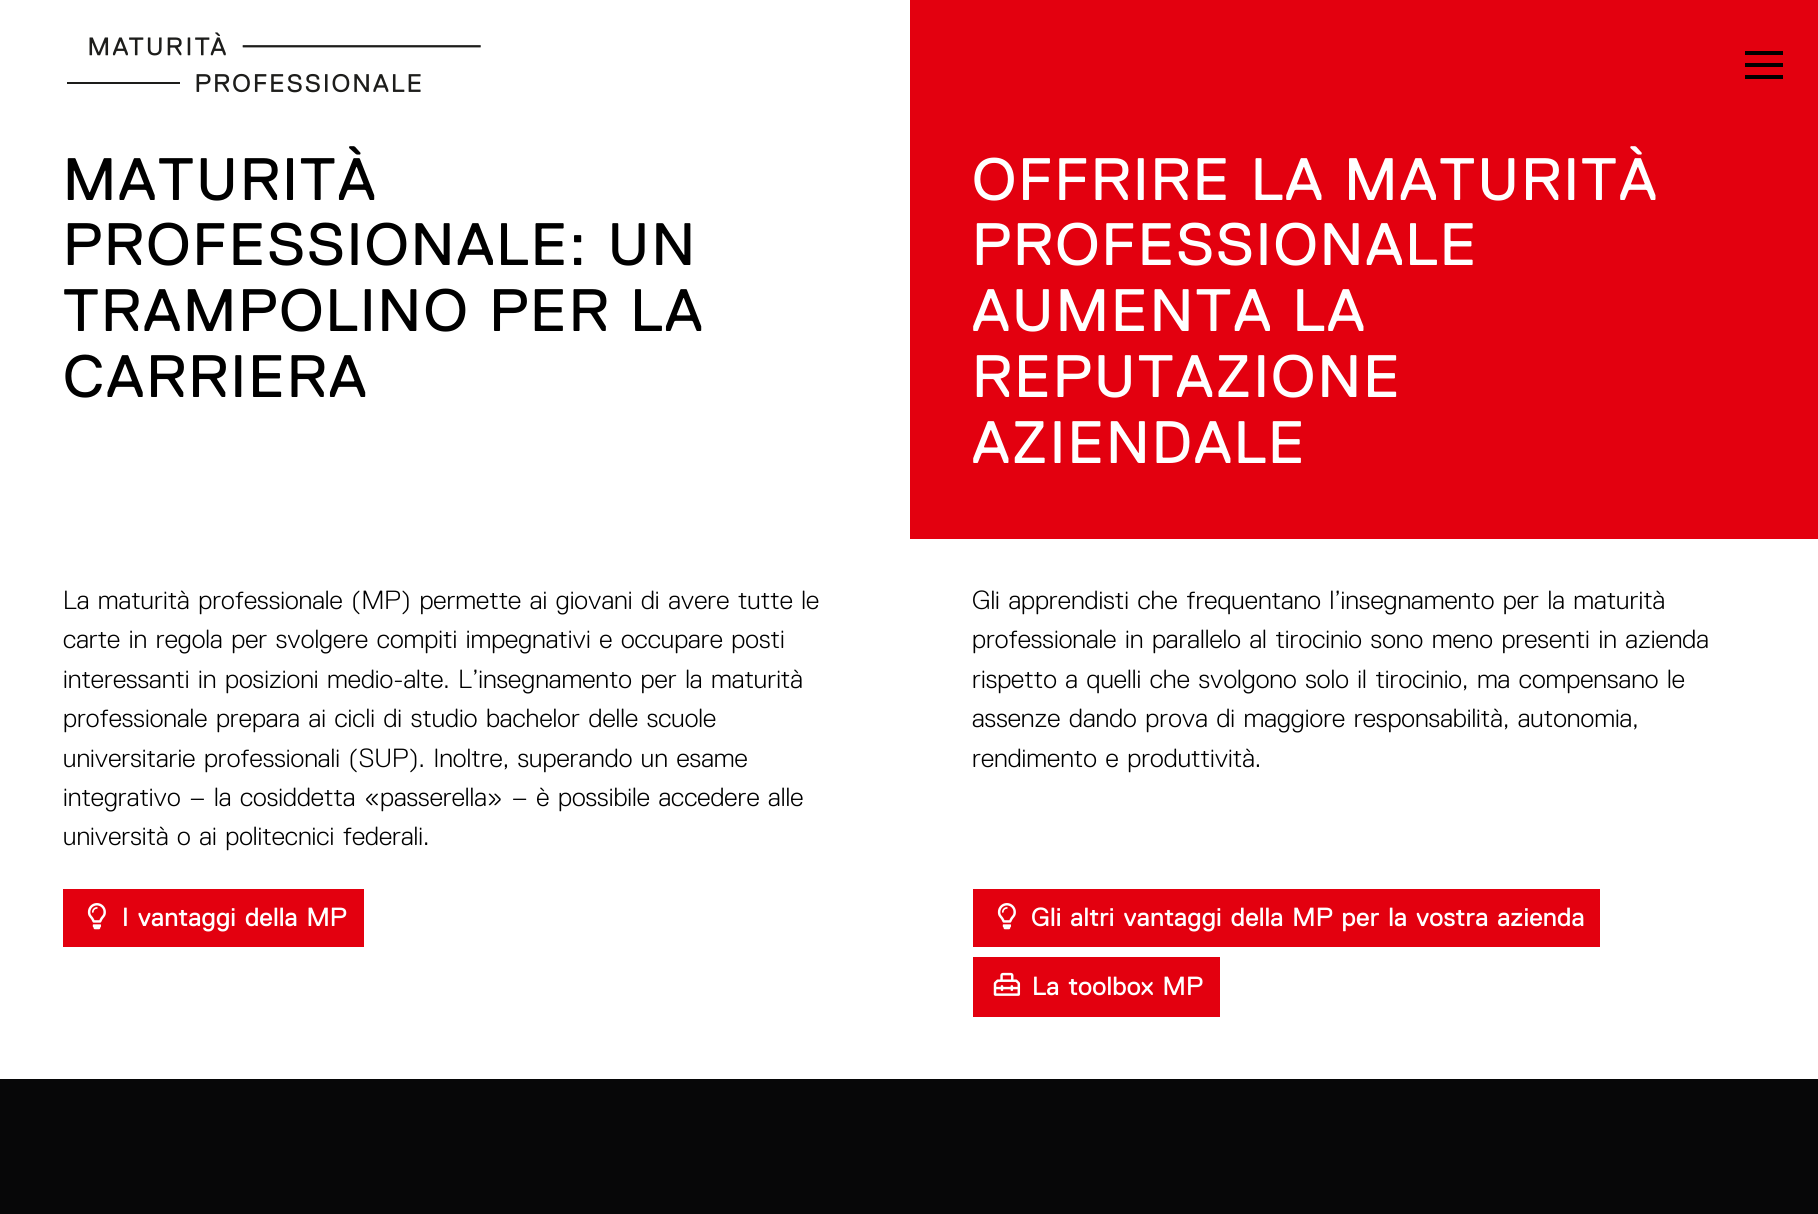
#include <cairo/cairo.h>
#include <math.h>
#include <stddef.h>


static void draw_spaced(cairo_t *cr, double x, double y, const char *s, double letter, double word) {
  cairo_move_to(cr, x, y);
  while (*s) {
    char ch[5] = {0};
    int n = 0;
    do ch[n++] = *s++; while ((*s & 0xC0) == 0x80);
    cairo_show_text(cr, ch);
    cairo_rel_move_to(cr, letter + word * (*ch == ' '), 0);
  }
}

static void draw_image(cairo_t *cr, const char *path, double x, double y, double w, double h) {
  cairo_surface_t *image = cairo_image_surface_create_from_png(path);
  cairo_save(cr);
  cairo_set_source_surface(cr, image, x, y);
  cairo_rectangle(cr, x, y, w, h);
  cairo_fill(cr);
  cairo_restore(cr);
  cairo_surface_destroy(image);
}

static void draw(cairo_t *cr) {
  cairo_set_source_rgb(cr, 1, 1, 1);
  cairo_paint(cr);
  draw_image(cr, "images/1.png", 67, 32, 414, 61);
  cairo_set_source_rgb(cr, 227 / 255.0, 0, 15 / 255.0);
  cairo_rectangle(cr, 910, 0, 908, 539);
  cairo_fill(cr);
  cairo_set_source_rgb(cr, 0, 0, 0);
  cairo_rectangle(cr, 1745, 51, 38, 4);
  cairo_fill(cr);
  cairo_rectangle(cr, 1745, 75, 38, 4);
  cairo_fill(cr);
  cairo_rectangle(cr, 1745, 63, 38, 4);
  cairo_fill(cr);
  cairo_set_source_rgb(cr, 227 / 255.0, 0, 15 / 255.0);
  cairo_rectangle(cr, 63, 889, 301, 58);
  cairo_fill(cr);
  draw_image(cr, "images/2.png", 87, 903, 19, 27);
  cairo_rectangle(cr, 973, 889, 627, 58);
  cairo_fill(cr);
  draw_image(cr, "images/2.png", 997, 903, 19, 27);
  cairo_rectangle(cr, 973, 957, 247, 60);
  cairo_fill(cr);
  draw_image(cr, "images/3.png", 993, 972, 28, 24);
  cairo_set_source_rgb(cr, 7 / 255.0, 7 / 255.0, 8 / 255.0);
  cairo_rectangle(cr, 0, 1079, 1818, 135);
  cairo_fill(cr);
  cairo_select_font_face(cr, "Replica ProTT", CAIRO_FONT_SLANT_NORMAL, CAIRO_FONT_WEIGHT_NORMAL);
  cairo_set_font_size(cr, 59.8);
  cairo_set_source_rgb(cr, 0, 0, 0);
  draw_spaced(cr, 63, 200, "MATURITÀ", 2.1, 0);
  draw_spaced(cr, 63, 265, "PROFESSIONALE: UN", 2.1, 1.75);
  draw_spaced(cr, 63, 331, "TRAMPOLINO PER LA", 2.1, 1.75);
  draw_spaced(cr, 63, 397, "CARRIERA", 2.1, 0);
  cairo_set_source_rgb(cr, 1, 1, 1);
  draw_spaced(cr, 972, 200, "OFFRIRE LA MATURITÀ", 2.1, 1.75);
  draw_spaced(cr, 972, 265, "PROFESSIONALE", 2.1, 0);
  draw_spaced(cr, 972, 331, "AUMENTA LA", 2.1, 1.75);
  draw_spaced(cr, 972, 397, "REPUTAZIONE", 2.1, 0);
  draw_spaced(cr, 972, 463, "AZIENDALE", 2.1, 0);
  cairo_select_font_face(cr, "Replica ProTT Light", CAIRO_FONT_SLANT_NORMAL, CAIRO_FONT_WEIGHT_NORMAL);
  cairo_set_font_size(cr, 26.25);
  cairo_set_source_rgb(cr, 0, 0, 0);
  draw_spaced(cr, 63, 609, "La maturità professionale (MP) permette ai giovani di avere tutte le", 0, 1.75);
  draw_spaced(cr, 63, 648, "carte in regola per svolgere compiti impegnativi e occupare posti", 0, 1.75);
  draw_spaced(cr, 63, 688, "interessanti in posizioni medio-alte. L’insegnamento per la maturità", 0, 1.75);
  draw_spaced(cr, 63, 727, "professionale prepara ai cicli di studio bachelor delle scuole", 0, 1.75);
  draw_spaced(cr, 63, 767, "universitarie professionali (SUP). Inoltre, superando un esame", 0, 1.75);
  draw_spaced(cr, 63, 806, "integrativo – la cosiddetta «passerella» – è possibile accedere alle", 0, 1.75);
  draw_spaced(cr, 63, 845, "università o ai politecnici federali.", 0, 1.75);
  draw_spaced(cr, 972, 609, "Gli apprendisti che frequentano l’insegnamento per la maturità", 0, 1.75);
  draw_spaced(cr, 972, 648, "professionale in parallelo al tirocinio sono meno presenti in azienda", 0, 1.75);
  draw_spaced(cr, 972, 688, "rispetto a quelli che svolgono solo il tirocinio, ma compensano le", 0, 1.75);
  draw_spaced(cr, 972, 727, "assenze dando prova di maggiore responsabilità, autonomia,", 0, 1.75);
  draw_spaced(cr, 972, 767, "rendimento e produttività.", 0, 1.75);
  cairo_select_font_face(cr, "Replica ProTT", CAIRO_FONT_SLANT_NORMAL, CAIRO_FONT_WEIGHT_NORMAL);
  cairo_set_source_rgb(cr, 1, 1, 1);
  draw_spaced(cr, 122, 926, "I vantaggi della MP", 0, 2);
  draw_spaced(cr, 1031, 926, "Gli altri vantaggi della MP per la vostra azienda", 0, 2);
  draw_spaced(cr, 1032, 995, "La toolbox MP", 0, 2);
}

int main(void) {
  cairo_surface_t *surface = cairo_image_surface_create(CAIRO_FORMAT_RGB24, 1818, 1214);
  cairo_t *cr = cairo_create(surface);
  cairo_font_options_t *options = cairo_font_options_create();
  cairo_font_options_set_hint_metrics(options, CAIRO_HINT_METRICS_OFF);
  cairo_font_options_set_hint_style(options, CAIRO_HINT_STYLE_NONE);
  cairo_set_font_options(cr, options);
  cairo_set_miter_limit(cr, 4);
  draw(cr);
  cairo_surface_write_to_png(surface, "out.png");
  cairo_font_options_destroy(options);
  cairo_destroy(cr);
  cairo_surface_destroy(surface);
  return 0;
}
